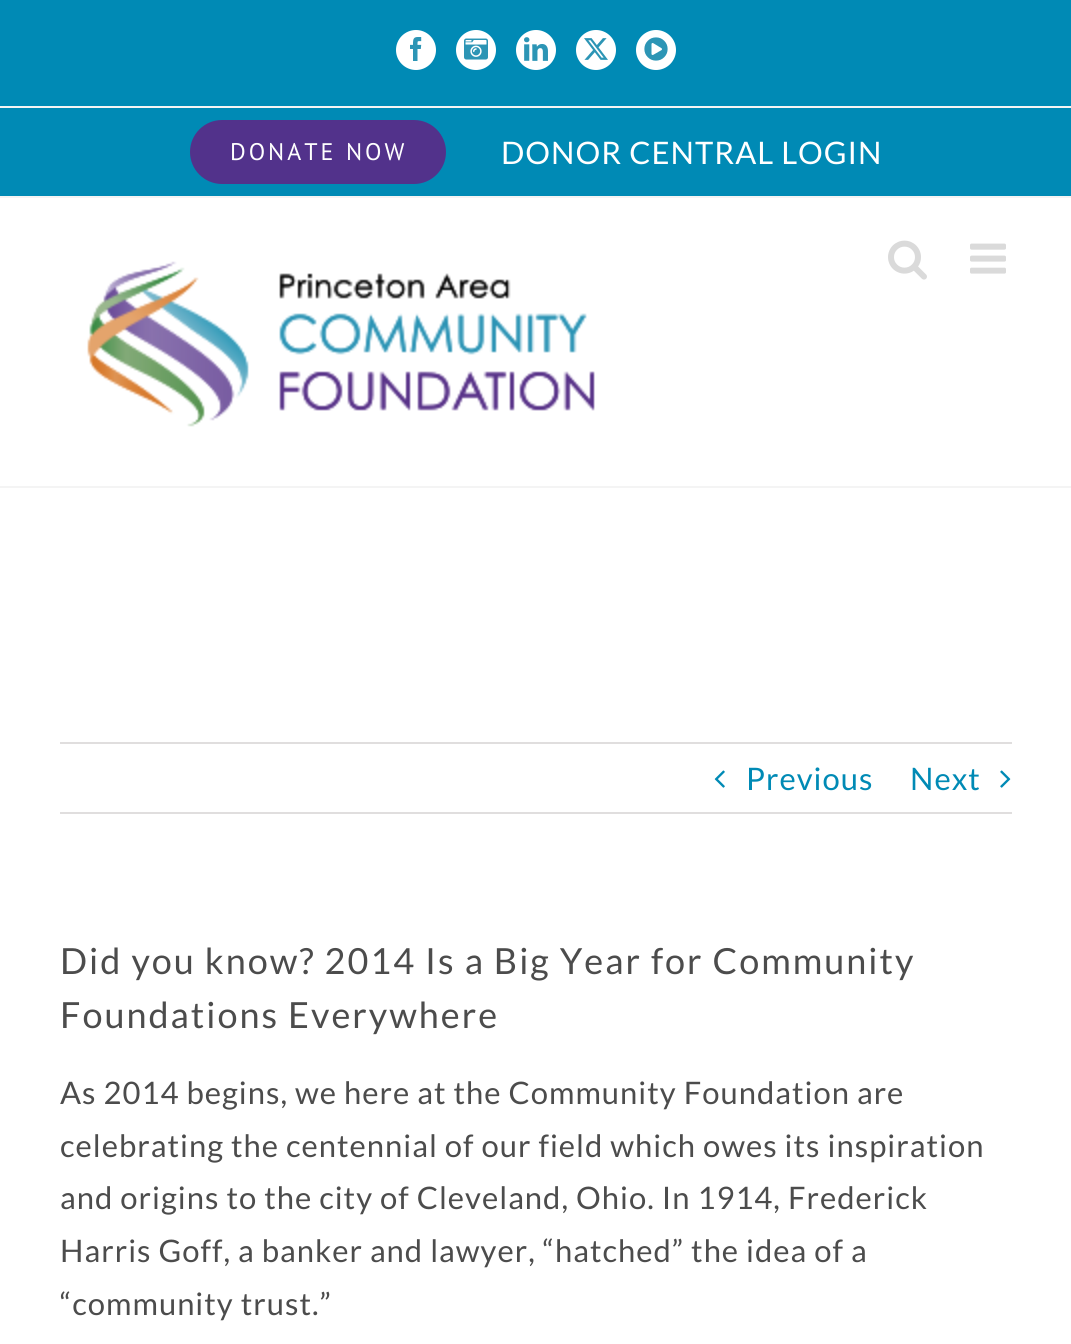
#include <cairo/cairo.h>
#include <math.h>
#include <stddef.h>


static void draw_spaced(cairo_t *cr, double x, double y, const char *s, double letter, double word) {
  cairo_move_to(cr, x, y);
  while (*s) {
    char ch[5] = {0};
    int n = 0;
    do ch[n++] = *s++; while ((*s & 0xC0) == 0x80);
    cairo_show_text(cr, ch);
    cairo_rel_move_to(cr, letter + word * (*ch == ' '), 0);
  }
}

static void rounded_rect(cairo_t *cr, double x, double y, double w, double h, double r) {
  cairo_new_sub_path(cr);
  cairo_arc(cr, x + w - r, y + h - r, r, 0, M_PI / 2);
  cairo_arc(cr, x + r, y + h - r, r, M_PI / 2, M_PI);
  cairo_arc(cr, x + r, y + r, r, M_PI, 1.5 * M_PI);
  cairo_arc(cr, x + w - r, y + r, r, 1.5 * M_PI, 2 * M_PI);
  cairo_close_path(cr);
}

static void draw_image(cairo_t *cr, const char *path, double x, double y, double w, double h) {
  cairo_surface_t *image = cairo_image_surface_create_from_png(path);
  cairo_save(cr);
  cairo_set_source_surface(cr, image, x, y);
  cairo_rectangle(cr, x, y, w, h);
  cairo_fill(cr);
  cairo_restore(cr);
  cairo_surface_destroy(image);
}

static void draw(cairo_t *cr) {
  cairo_set_source_rgb(cr, 1, 1, 1);
  cairo_paint(cr);
  cairo_set_source_rgb(cr, 0, 138 / 255.0, 181 / 255.0);
  cairo_rectangle(cr, 0, 0, 1071, 196);
  cairo_fill(cr);
  cairo_set_source_rgb(cr, 244 / 255.0, 244 / 255.0, 244 / 255.0);
  cairo_rectangle(cr, 0, 196, 1071, 2);
  cairo_fill(cr);
  cairo_rectangle(cr, 0, 106, 1071, 2);
  cairo_fill(cr);
  cairo_set_source_rgb(cr, 1, 1, 1);
  cairo_arc(cr, 416, 50, 19, 0, 2 * M_PI);
  cairo_fill_preserve(cr);
  cairo_stroke(cr);
  draw_image(cr, "images/1.png", 410, 37, 12, 24);
  cairo_arc(cr, 476, 50, 19, 0, 2 * M_PI);
  cairo_fill_preserve(cr);
  cairo_stroke(cr);
  draw_image(cr, "images/2.png", 464, 38, 24, 22);
  cairo_arc(cr, 536, 50, 19, 0, 2 * M_PI);
  cairo_fill_preserve(cr);
  cairo_stroke(cr);
  draw_image(cr, "images/3.png", 524, 37, 24, 24);
  cairo_arc(cr, 596, 50, 19, 0, 2 * M_PI);
  cairo_fill_preserve(cr);
  cairo_stroke(cr);
  draw_image(cr, "images/4.png", 584, 38, 24, 22);
  cairo_arc(cr, 656, 50, 19, 0, 2 * M_PI);
  cairo_fill_preserve(cr);
  cairo_stroke(cr);
  draw_image(cr, "images/5.png", 644, 37, 24, 24);
  cairo_set_source_rgb(cr, 82 / 255.0, 50 / 255.0, 139 / 255.0);
  rounded_rect(cr, 190, 120, 256, 64, 32);
  cairo_fill(cr);
  cairo_set_source_rgb(cr, 244 / 255.0, 244 / 255.0, 244 / 255.0);
  cairo_rectangle(cr, 0, 486, 1071, 2);
  cairo_fill(cr);
  draw_image(cr, "images/6.png", 87, 261, 508, 166);
  draw_image(cr, "images/7.png", 888, 240, 39, 40);
  draw_image(cr, "images/8.png", 970, 243, 36, 31);
  cairo_set_source_rgb(cr, 224 / 255.0, 222 / 255.0, 222 / 255.0);
  cairo_rectangle(cr, 60, 742, 952, 2);
  cairo_fill(cr);
  cairo_rectangle(cr, 60, 812, 952, 2);
  cairo_fill(cr);
  draw_image(cr, "images/9.png", 714, 770, 11, 18);
  draw_image(cr, "images/10.png", 1000, 770, 11, 18);
  cairo_select_font_face(cr, "PT Sans", CAIRO_FONT_SLANT_NORMAL, CAIRO_FONT_WEIGHT_NORMAL);
  cairo_set_font_size(cr, 24);
  cairo_set_source_rgb(cr, 1, 1, 1);
  draw_spaced(cr, 230, 160, "DONATE NOW", 3, 0);
  cairo_select_font_face(cr, "Lato", CAIRO_FONT_SLANT_NORMAL, CAIRO_FONT_WEIGHT_NORMAL);
  cairo_set_font_size(cr, 31);
  draw_spaced(cr, 501, 164, "DONOR CENTRAL LOGIN", 1, 0);
  cairo_set_source_rgb(cr, 0, 138 / 255.0, 181 / 255.0);
  draw_spaced(cr, 746, 790, "Previous", 1, 0);
  draw_spaced(cr, 910, 790, "Next", 1, 0);
  cairo_set_font_size(cr, 36);
  cairo_set_source_rgb(cr, 76 / 255.0, 76 / 255.0, 76 / 255.0);
  draw_spaced(cr, 60, 974, "Did you know? 2014 Is a Big Year for Community", 2, 0);
  draw_spaced(cr, 60, 1028, "Foundations Everywhere", 2, 0);
  cairo_set_font_size(cr, 31);
  draw_spaced(cr, 60, 1104, "As 2014 begins, we here at the Community Foundation are", 1, 0);
  draw_spaced(cr, 60, 1157, "celebrating the centennial of our field which owes its inspiration", 1, 0);
  draw_spaced(cr, 60, 1209, "and origins to the city of Cleveland, Ohio. In 1914, Frederick", 1, 0);
  draw_spaced(cr, 60, 1262, "Harris Goff, a banker and lawyer, “hatched” the idea of a", 1, 0);
  draw_spaced(cr, 60, 1315, "“community trust.”", 1, 0);
}

int main(void) {
  cairo_surface_t *surface = cairo_image_surface_create(CAIRO_FORMAT_RGB24, 1071, 1344);
  cairo_t *cr = cairo_create(surface);
  cairo_font_options_t *options = cairo_font_options_create();
  cairo_font_options_set_hint_metrics(options, CAIRO_HINT_METRICS_OFF);
  cairo_font_options_set_hint_style(options, CAIRO_HINT_STYLE_NONE);
  cairo_set_font_options(cr, options);
  cairo_set_miter_limit(cr, 4);
  draw(cr);
  cairo_surface_write_to_png(surface, "out.png");
  cairo_font_options_destroy(options);
  cairo_destroy(cr);
  cairo_surface_destroy(surface);
  return 0;
}
